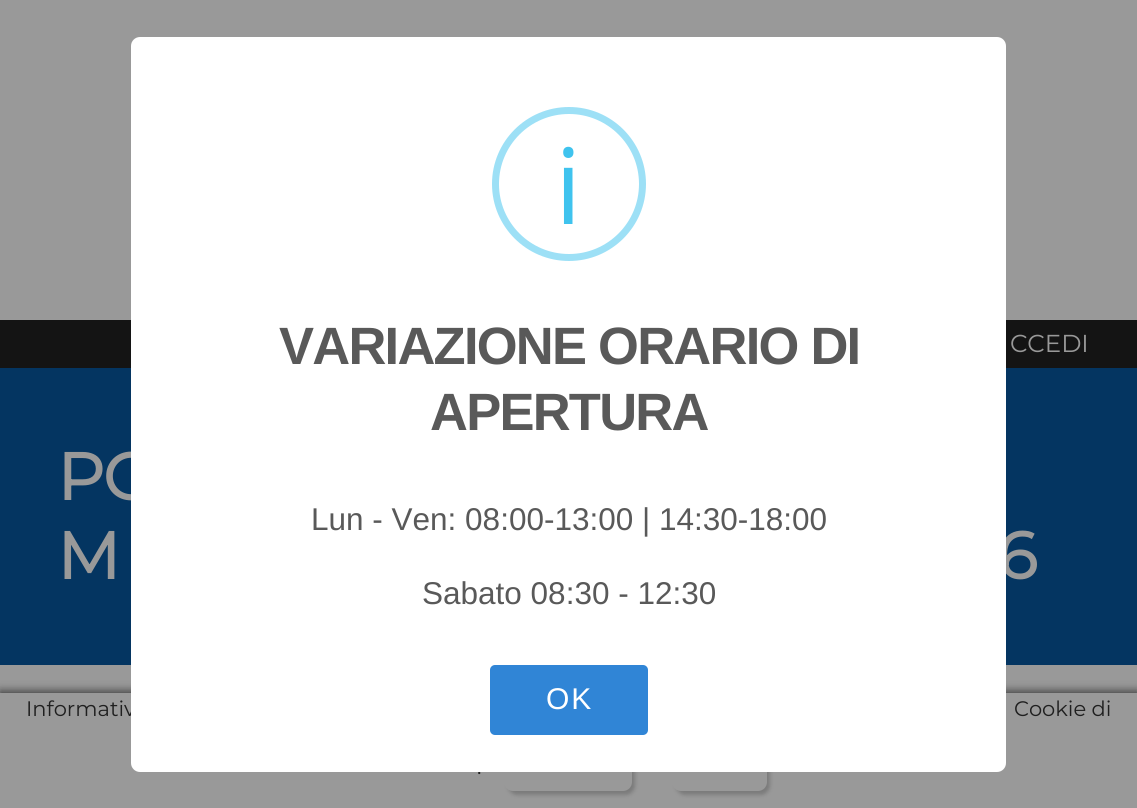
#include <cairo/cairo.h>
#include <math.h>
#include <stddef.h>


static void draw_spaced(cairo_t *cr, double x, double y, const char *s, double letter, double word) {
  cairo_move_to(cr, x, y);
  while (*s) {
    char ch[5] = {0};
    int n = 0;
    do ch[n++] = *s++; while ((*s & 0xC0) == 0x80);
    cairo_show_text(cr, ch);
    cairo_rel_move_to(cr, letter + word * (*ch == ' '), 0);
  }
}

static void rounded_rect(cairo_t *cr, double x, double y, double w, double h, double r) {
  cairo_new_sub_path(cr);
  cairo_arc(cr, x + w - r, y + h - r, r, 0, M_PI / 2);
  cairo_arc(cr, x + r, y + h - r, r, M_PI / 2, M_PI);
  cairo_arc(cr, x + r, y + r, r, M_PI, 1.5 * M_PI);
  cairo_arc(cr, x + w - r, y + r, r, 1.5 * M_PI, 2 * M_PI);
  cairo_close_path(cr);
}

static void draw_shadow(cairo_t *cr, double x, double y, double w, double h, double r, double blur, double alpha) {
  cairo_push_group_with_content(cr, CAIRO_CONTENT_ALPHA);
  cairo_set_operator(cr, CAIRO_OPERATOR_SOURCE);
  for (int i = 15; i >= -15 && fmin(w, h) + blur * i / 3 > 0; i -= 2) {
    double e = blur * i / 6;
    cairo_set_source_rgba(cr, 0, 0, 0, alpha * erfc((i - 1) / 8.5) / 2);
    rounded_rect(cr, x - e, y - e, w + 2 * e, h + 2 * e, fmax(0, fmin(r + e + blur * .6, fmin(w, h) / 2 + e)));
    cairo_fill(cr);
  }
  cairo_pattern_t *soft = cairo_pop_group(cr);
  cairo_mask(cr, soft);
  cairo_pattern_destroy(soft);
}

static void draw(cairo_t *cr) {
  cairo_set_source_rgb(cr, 153 / 255.0, 153 / 255.0, 153 / 255.0);
  cairo_paint(cr);
  cairo_set_source_rgb(cr, 20 / 255.0, 20 / 255.0, 20 / 255.0);
  cairo_rectangle(cr, 0, 320, 1137, 48);
  cairo_fill(cr);
  cairo_set_source_rgb(cr, 4 / 255.0, 53 / 255.0, 97 / 255.0);
  cairo_rectangle(cr, 0, 368, 1137, 297);
  cairo_fill(cr);
  cairo_set_source_rgb(cr, 30 / 255.0, 30 / 255.0, 30 / 255.0);
  draw_shadow(cr, 0, 691, 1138, 116, 0, 4.5, 0.75);
  cairo_set_source_rgb(cr, 153 / 255.0, 153 / 255.0, 153 / 255.0);
  cairo_rectangle(cr, 0, 693, 1137, 115);
  cairo_fill(cr);
  cairo_set_source_rgb(cr, 0, 0, 0);
  draw_shadow(cr, 508, 746, 127, 49, 9, 2, 0.2);
  cairo_set_source_rgb(cr, 153 / 255.0, 153 / 255.0, 153 / 255.0);
  rounded_rect(cr, 504, 742, 128, 49, 9);
  cairo_fill(cr);
  cairo_set_source_rgb(cr, 0, 0, 0);
  draw_shadow(cr, 676, 746, 94, 49, 9, 2, 0.2);
  cairo_set_source_rgb(cr, 153 / 255.0, 153 / 255.0, 153 / 255.0);
  rounded_rect(cr, 672, 742, 95, 49, 9);
  cairo_fill(cr);
  cairo_select_font_face(cr, "Montserrat Thin", CAIRO_FONT_SLANT_NORMAL, CAIRO_FONT_WEIGHT_NORMAL);
  cairo_set_font_size(cr, 24.5);
  cairo_move_to(cr, 1010, 352);
  cairo_show_text(cr, "CCEDI");
  cairo_select_font_face(cr, "Montserrat", CAIRO_FONT_SLANT_NORMAL, CAIRO_FONT_WEIGHT_BOLD);
  cairo_set_font_size(cr, 66);
  draw_spaced(cr, 57, 500, "PO", -1.75, 0);
  draw_spaced(cr, 57, 579, "M", -1.75, 0);
  draw_spaced(cr, 997, 579, "6", -1.75, 0);
  cairo_select_font_face(cr, "Montserrat Thin", CAIRO_FONT_SLANT_NORMAL, CAIRO_FONT_WEIGHT_NORMAL);
  cairo_set_font_size(cr, 21);
  cairo_set_source_rgb(cr, 31 / 255.0, 31 / 255.0, 31 / 255.0);
  cairo_move_to(cr, 26, 716);
  cairo_show_text(cr, "Informativ");
  cairo_move_to(cr, 1014, 716);
  cairo_show_text(cr, "Cookie di");
  cairo_move_to(cr, 477, 774);
  cairo_show_text(cr, ".");
  cairo_set_source_rgb(cr, 1, 1, 1);
  rounded_rect(cr, 131, 37, 875, 735, 9);
  cairo_fill(cr);
  cairo_select_font_face(cr, "Liberation Sans", CAIRO_FONT_SLANT_NORMAL, CAIRO_FONT_WEIGHT_NORMAL);
  cairo_set_font_size(cr, 31.5);
  cairo_set_source_rgb(cr, 89 / 255.0, 89 / 255.0, 89 / 255.0);
  cairo_move_to(cr, 422, 604);
  cairo_show_text(cr, "Sabato 08:30 - 12:30");
  cairo_move_to(cr, 311, 530);
  cairo_show_text(cr, "Lun - Ven: 08:00-13:00 | 14:30-18:00");
  cairo_select_font_face(cr, "Liberation Sans", CAIRO_FONT_SLANT_NORMAL, CAIRO_FONT_WEIGHT_BOLD);
  cairo_set_font_size(cr, 52.5);
  draw_spaced(cr, 430, 430, "APERTURA", -1.75, 0);
  draw_spaced(cr, 279, 364, "VARIAZIONE ORARIO DI", -1.75, 0);
  cairo_new_path(cr);
  cairo_arc(cr, 569, 184, 73.5, 0, 2 * M_PI);
  cairo_set_source_rgb(cr, 157 / 255.0, 224 / 255.0, 246 / 255.0);
  cairo_set_line_width(cr, 7);
  cairo_stroke(cr);
  cairo_select_font_face(cr, "Open Sans", CAIRO_FONT_SLANT_NORMAL, CAIRO_FONT_WEIGHT_NORMAL);
  cairo_set_font_size(cr, 105);
  cairo_set_source_rgb(cr, 63 / 255.0, 195 / 255.0, 238 / 255.0);
  cairo_move_to(cr, 555, 224);
  cairo_show_text(cr, "i");
  cairo_set_source_rgb(cr, 48 / 255.0, 133 / 255.0, 214 / 255.0);
  rounded_rect(cr, 490, 665, 158, 70, 5);
  cairo_fill(cr);
  cairo_select_font_face(cr, "Liberation Sans", CAIRO_FONT_SLANT_NORMAL, CAIRO_FONT_WEIGHT_NORMAL);
  cairo_set_font_size(cr, 30);
  cairo_set_source_rgb(cr, 1, 1, 1);
  draw_spaced(cr, 546, 709, "OK", 2, 0);
}

int main(void) {
  cairo_surface_t *surface = cairo_image_surface_create(CAIRO_FORMAT_RGB24, 1137, 808);
  cairo_t *cr = cairo_create(surface);
  cairo_font_options_t *options = cairo_font_options_create();
  cairo_font_options_set_hint_metrics(options, CAIRO_HINT_METRICS_OFF);
  cairo_font_options_set_hint_style(options, CAIRO_HINT_STYLE_NONE);
  cairo_set_font_options(cr, options);
  cairo_set_miter_limit(cr, 4);
  draw(cr);
  cairo_surface_write_to_png(surface, "out.png");
  cairo_font_options_destroy(options);
  cairo_destroy(cr);
  cairo_surface_destroy(surface);
  return 0;
}
